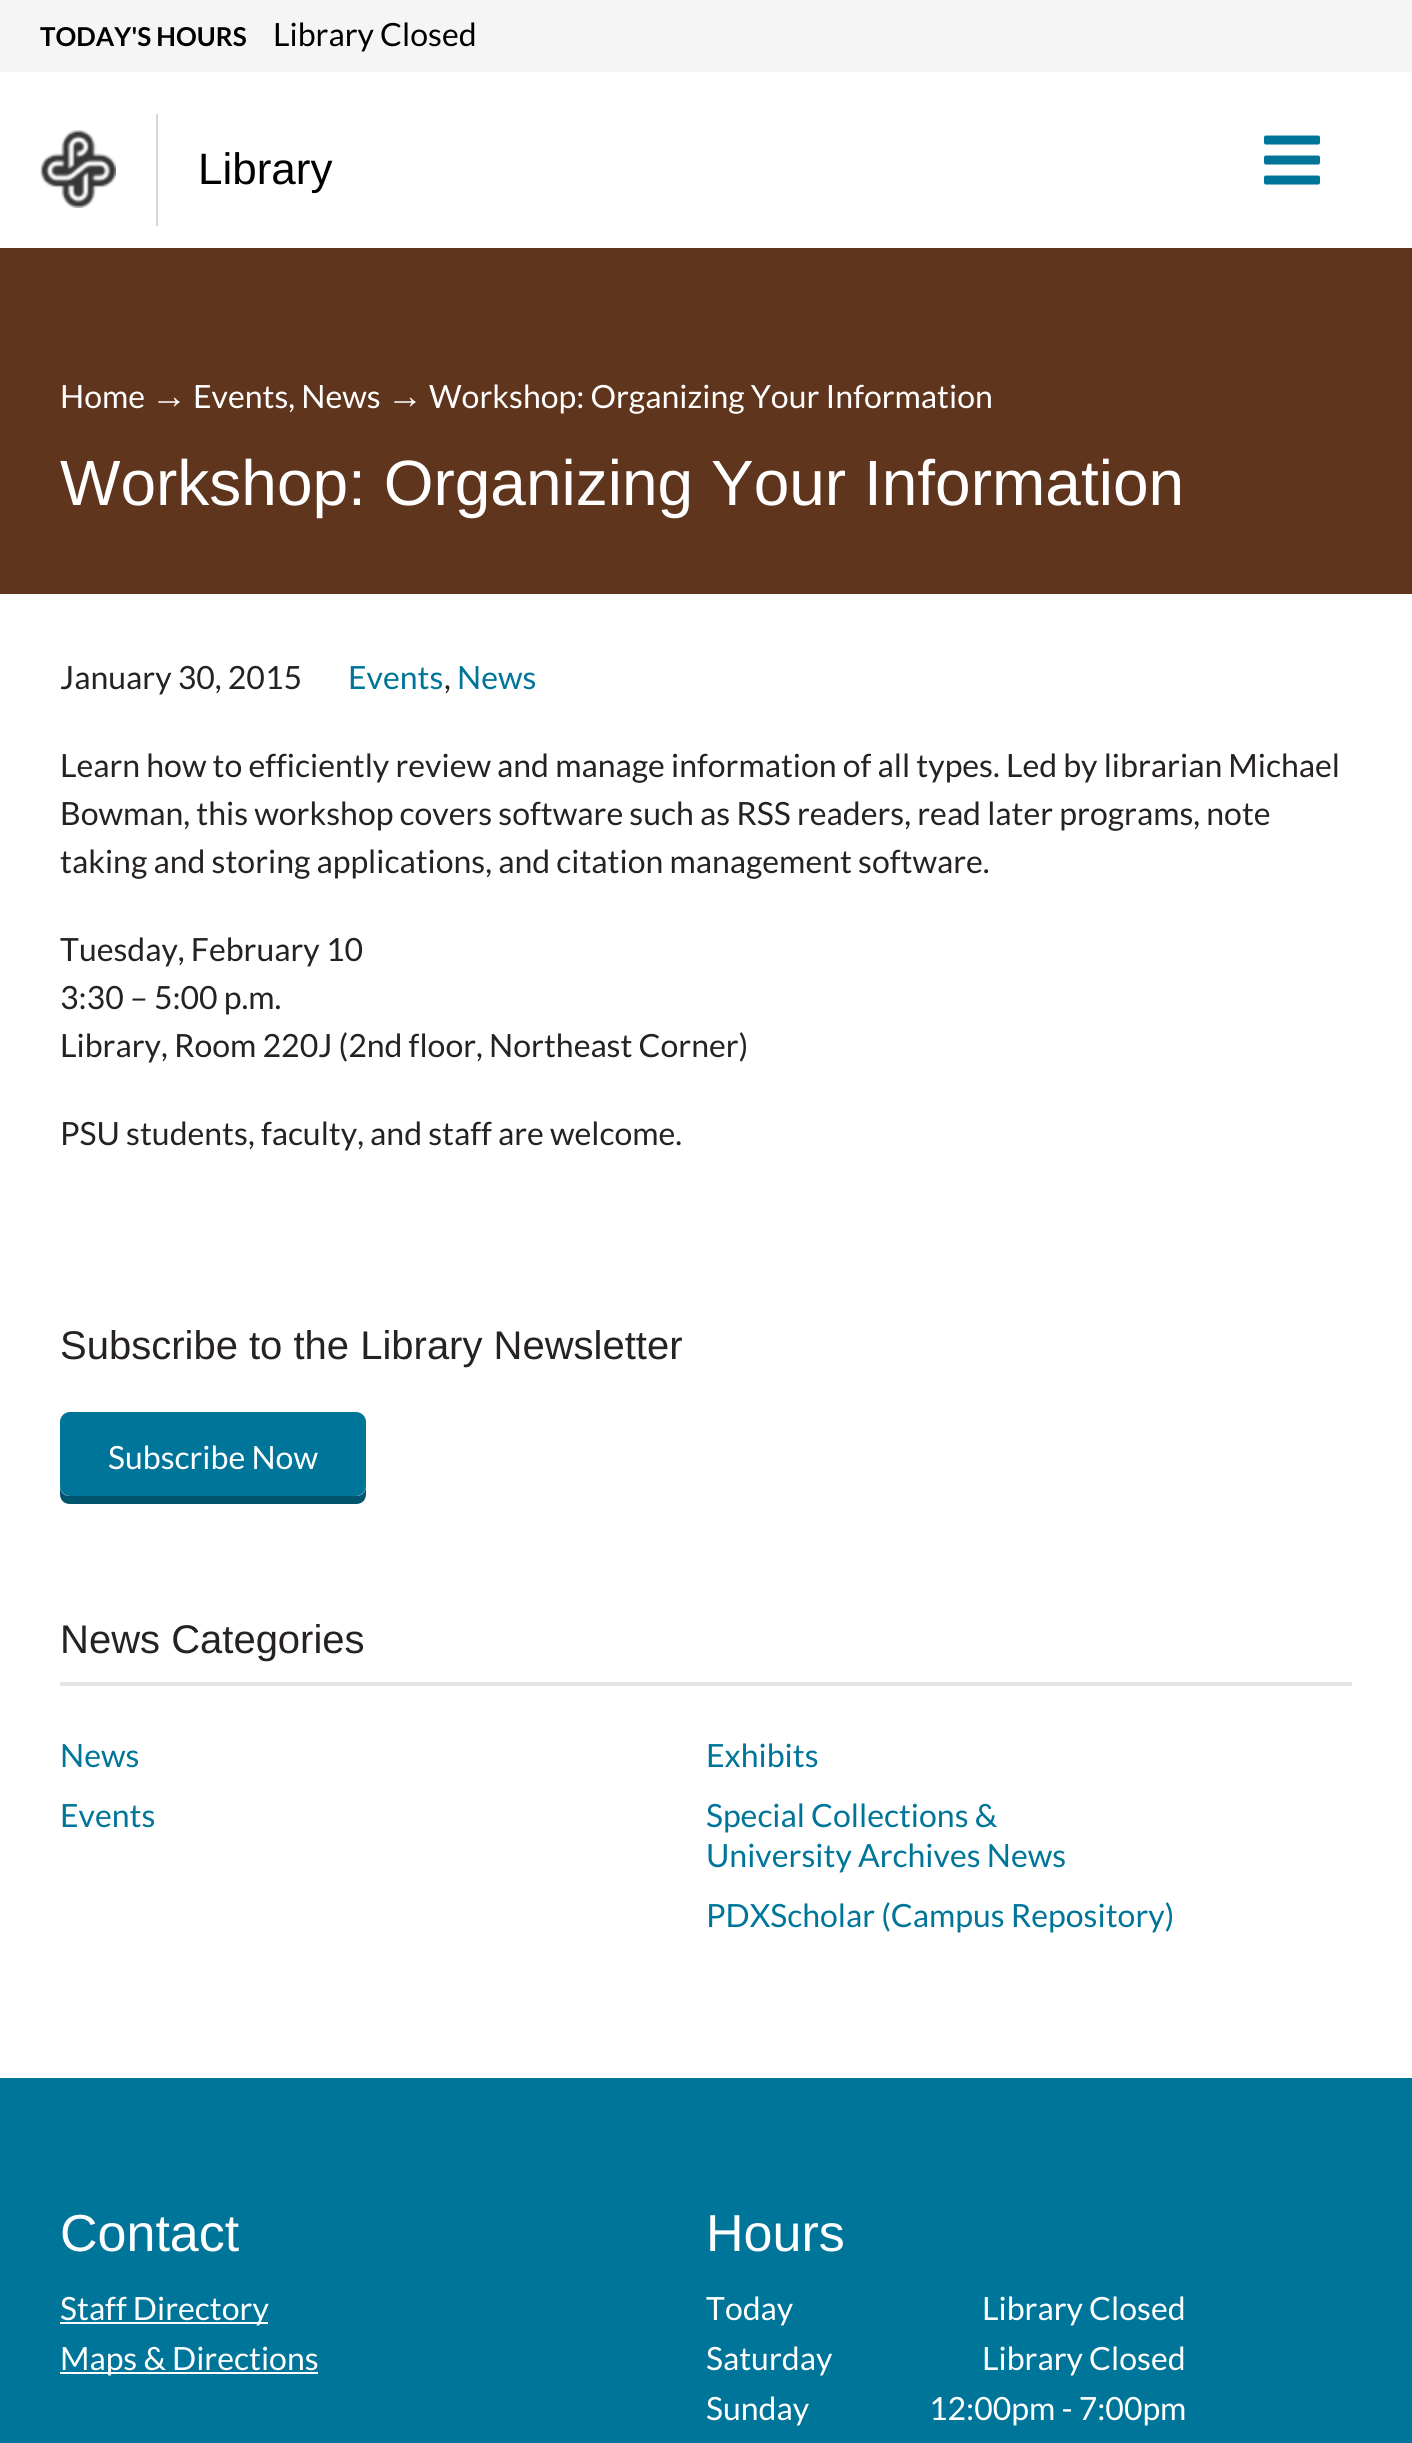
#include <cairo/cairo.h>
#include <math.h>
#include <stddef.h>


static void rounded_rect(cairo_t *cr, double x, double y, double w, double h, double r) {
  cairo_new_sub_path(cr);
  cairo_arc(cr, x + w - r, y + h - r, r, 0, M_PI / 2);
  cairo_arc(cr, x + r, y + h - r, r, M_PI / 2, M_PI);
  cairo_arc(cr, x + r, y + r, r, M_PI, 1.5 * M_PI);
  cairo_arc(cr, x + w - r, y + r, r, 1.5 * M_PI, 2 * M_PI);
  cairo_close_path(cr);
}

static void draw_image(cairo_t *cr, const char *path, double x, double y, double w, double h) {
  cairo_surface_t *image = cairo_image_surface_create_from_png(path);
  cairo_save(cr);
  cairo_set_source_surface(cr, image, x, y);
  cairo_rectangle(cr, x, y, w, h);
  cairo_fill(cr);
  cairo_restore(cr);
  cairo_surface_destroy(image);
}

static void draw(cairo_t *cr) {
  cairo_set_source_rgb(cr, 245 / 255.0, 245 / 255.0, 245 / 255.0);
  cairo_paint(cr);
  cairo_set_source_rgb(cr, 1, 1, 1);
  cairo_rectangle(cr, 0, 72, 1412, 176);
  cairo_fill(cr);
  draw_image(cr, "images/1.png", 40, 130, 76, 78);
  cairo_set_source_rgb(cr, 216 / 255.0, 216 / 255.0, 216 / 255.0);
  cairo_rectangle(cr, 156, 114, 2, 112);
  cairo_fill(cr);
  draw_image(cr, "images/2.png", 1264, 135, 56, 50);
  cairo_set_source_rgb(cr, 96 / 255.0, 53 / 255.0, 29 / 255.0);
  cairo_rectangle(cr, 0, 248, 1412, 346);
  cairo_fill(cr);
  cairo_set_source_rgb(cr, 1, 1, 1);
  cairo_rectangle(cr, 0, 594, 1412, 1484);
  cairo_fill(cr);
  cairo_set_source_rgb(cr, 0, 84 / 255.0, 110 / 255.0);
  cairo_new_path(cr);
  cairo_move_to(cr, 60, 1486);
  cairo_line_to(cr, 60, 1494);
  cairo_curve_to(cr, 60, 1500, 64, 1504, 70, 1504);
  cairo_line_to(cr, 356, 1504);
  cairo_curve_to(cr, 362, 1504, 366, 1500, 366, 1494);
  cairo_line_to(cr, 366, 1486);
  cairo_curve_to(cr, 366, 1492, 362, 1496, 356, 1496);
  cairo_line_to(cr, 70, 1496);
  cairo_curve_to(cr, 64, 1496, 60, 1492, 60, 1486);
  cairo_close_path(cr);
  cairo_fill(cr);
  cairo_set_source_rgb(cr, 0, 117 / 255.0, 154 / 255.0);
  rounded_rect(cr, 60, 1412, 306, 84, 10);
  cairo_fill(cr);
  cairo_set_source_rgb(cr, 229 / 255.0, 229 / 255.0, 229 / 255.0);
  cairo_rectangle(cr, 60, 1682, 1292, 4);
  cairo_fill(cr);
  cairo_set_source_rgb(cr, 0, 117 / 255.0, 154 / 255.0);
  cairo_rectangle(cr, 0, 2078, 1412, 365);
  cairo_fill(cr);
  cairo_set_source_rgb(cr, 1, 1, 1);
  cairo_rectangle(cr, 60, 2322, 208, 2);
  cairo_fill(cr);
  cairo_rectangle(cr, 60, 2372, 258, 2);
  cairo_fill(cr);
  cairo_select_font_face(cr, "Lato", CAIRO_FONT_SLANT_NORMAL, CAIRO_FONT_WEIGHT_BOLD);
  cairo_set_font_size(cr, 26);
  cairo_set_source_rgb(cr, 0, 0, 0);
  cairo_move_to(cr, 40, 46);
  cairo_show_text(cr, "TODAY'S HOURS");
  cairo_select_font_face(cr, "Lato", CAIRO_FONT_SLANT_NORMAL, CAIRO_FONT_WEIGHT_NORMAL);
  cairo_set_font_size(cr, 32);
  cairo_move_to(cr, 273, 46);
  cairo_show_text(cr, "Library Closed");
  cairo_select_font_face(cr, "Liberation Sans", CAIRO_FONT_SLANT_NORMAL, CAIRO_FONT_WEIGHT_NORMAL);
  cairo_set_font_size(cr, 44);
  cairo_move_to(cr, 198, 184);
  cairo_show_text(cr, "Library");
  cairo_select_font_face(cr, "Lato", CAIRO_FONT_SLANT_NORMAL, CAIRO_FONT_WEIGHT_NORMAL);
  cairo_set_font_size(cr, 32);
  cairo_set_source_rgb(cr, 1, 1, 1);
  cairo_move_to(cr, 60, 408);
  cairo_show_text(cr, "Home");
  cairo_select_font_face(cr, "Liberation Sans", CAIRO_FONT_SLANT_NORMAL, CAIRO_FONT_WEIGHT_NORMAL);
  cairo_set_font_size(cr, 36);
  cairo_move_to(cr, 151, 408);
  cairo_show_text(cr, "→");
  cairo_select_font_face(cr, "Lato", CAIRO_FONT_SLANT_NORMAL, CAIRO_FONT_WEIGHT_NORMAL);
  cairo_set_font_size(cr, 32);
  cairo_move_to(cr, 193, 408);
  cairo_show_text(cr, "Events, News");
  cairo_select_font_face(cr, "Liberation Sans", CAIRO_FONT_SLANT_NORMAL, CAIRO_FONT_WEIGHT_NORMAL);
  cairo_set_font_size(cr, 36);
  cairo_move_to(cr, 387, 408);
  cairo_show_text(cr, "→");
  cairo_select_font_face(cr, "Lato", CAIRO_FONT_SLANT_NORMAL, CAIRO_FONT_WEIGHT_NORMAL);
  cairo_set_font_size(cr, 32);
  cairo_move_to(cr, 429, 408);
  cairo_show_text(cr, "Workshop: Organizing Your Information");
  cairo_select_font_face(cr, "Liberation Sans", CAIRO_FONT_SLANT_NORMAL, CAIRO_FONT_WEIGHT_NORMAL);
  cairo_set_font_size(cr, 64);
  cairo_move_to(cr, 60, 505);
  cairo_show_text(cr, "Workshop: Organizing Your Information");
  cairo_select_font_face(cr, "Lato", CAIRO_FONT_SLANT_NORMAL, CAIRO_FONT_WEIGHT_NORMAL);
  cairo_set_font_size(cr, 32);
  cairo_set_source_rgb(cr, 38 / 255.0, 34 / 255.0, 34 / 255.0);
  cairo_move_to(cr, 60, 689);
  cairo_show_text(cr, "January 30, 2015");
  cairo_set_source_rgb(cr, 0, 117 / 255.0, 154 / 255.0);
  cairo_move_to(cr, 348, 689);
  cairo_show_text(cr, "Events");
  cairo_set_source_rgb(cr, 38 / 255.0, 34 / 255.0, 34 / 255.0);
  cairo_move_to(cr, 444, 689);
  cairo_show_text(cr, ",");
  cairo_set_source_rgb(cr, 0, 117 / 255.0, 154 / 255.0);
  cairo_move_to(cr, 457, 689);
  cairo_show_text(cr, "News");
  cairo_set_source_rgb(cr, 38 / 255.0, 34 / 255.0, 34 / 255.0);
  cairo_move_to(cr, 60, 777);
  cairo_show_text(cr, "Learn how to efficiently review and manage information of all types. Led by librarian Michael");
  cairo_move_to(cr, 60, 825);
  cairo_show_text(cr, "Bowman, this workshop covers software such as RSS readers, read later programs, note");
  cairo_move_to(cr, 60, 873);
  cairo_show_text(cr, "taking and storing applications, and citation management software.");
  cairo_move_to(cr, 60, 961);
  cairo_show_text(cr, "Tuesday, February 10");
  cairo_move_to(cr, 60, 1009);
  cairo_show_text(cr, "3:30 – 5:00 p.m.");
  cairo_move_to(cr, 60, 1057);
  cairo_show_text(cr, "Library, Room 220J (2nd floor, Northeast Corner)");
  cairo_move_to(cr, 60, 1145);
  cairo_show_text(cr, "PSU students, faculty, and staff are welcome.");
  cairo_select_font_face(cr, "Liberation Sans", CAIRO_FONT_SLANT_NORMAL, CAIRO_FONT_WEIGHT_NORMAL);
  cairo_set_font_size(cr, 40);
  cairo_move_to(cr, 60, 1359);
  cairo_show_text(cr, "Subscribe to the Library Newsletter");
  cairo_select_font_face(cr, "Lato", CAIRO_FONT_SLANT_NORMAL, CAIRO_FONT_WEIGHT_NORMAL);
  cairo_set_font_size(cr, 32);
  cairo_set_source_rgb(cr, 1, 1, 1);
  cairo_move_to(cr, 108, 1469);
  cairo_show_text(cr, "Subscribe Now");
  cairo_select_font_face(cr, "Liberation Sans", CAIRO_FONT_SLANT_NORMAL, CAIRO_FONT_WEIGHT_NORMAL);
  cairo_set_font_size(cr, 40);
  cairo_set_source_rgb(cr, 38 / 255.0, 34 / 255.0, 34 / 255.0);
  cairo_move_to(cr, 60, 1653);
  cairo_show_text(cr, "News Categories");
  cairo_select_font_face(cr, "Lato", CAIRO_FONT_SLANT_NORMAL, CAIRO_FONT_WEIGHT_NORMAL);
  cairo_set_font_size(cr, 32);
  cairo_set_source_rgb(cr, 0, 117 / 255.0, 154 / 255.0);
  cairo_move_to(cr, 60, 1767);
  cairo_show_text(cr, "News");
  cairo_move_to(cr, 60, 1827);
  cairo_show_text(cr, "Events");
  cairo_move_to(cr, 706, 1767);
  cairo_show_text(cr, "Exhibits");
  cairo_move_to(cr, 706, 1827);
  cairo_show_text(cr, "Special Collections &");
  cairo_move_to(cr, 706, 1867);
  cairo_show_text(cr, "University Archives News");
  cairo_move_to(cr, 706, 1927);
  cairo_show_text(cr, "PDXScholar (Campus Repository)");
  cairo_select_font_face(cr, "Liberation Sans", CAIRO_FONT_SLANT_NORMAL, CAIRO_FONT_WEIGHT_NORMAL);
  cairo_set_font_size(cr, 52);
  cairo_set_source_rgb(cr, 1, 1, 1);
  cairo_move_to(cr, 60, 2251);
  cairo_show_text(cr, "Contact");
  cairo_select_font_face(cr, "Lato", CAIRO_FONT_SLANT_NORMAL, CAIRO_FONT_WEIGHT_NORMAL);
  cairo_set_font_size(cr, 32);
  cairo_move_to(cr, 60, 2320);
  cairo_show_text(cr, "Staff Directory");
  cairo_move_to(cr, 60, 2370);
  cairo_show_text(cr, "Maps & Directions");
  cairo_select_font_face(cr, "Liberation Sans", CAIRO_FONT_SLANT_NORMAL, CAIRO_FONT_WEIGHT_NORMAL);
  cairo_set_font_size(cr, 52);
  cairo_move_to(cr, 706, 2251);
  cairo_show_text(cr, "Hours");
  cairo_select_font_face(cr, "Lato", CAIRO_FONT_SLANT_NORMAL, CAIRO_FONT_WEIGHT_NORMAL);
  cairo_set_font_size(cr, 32);
  cairo_move_to(cr, 706, 2320);
  cairo_show_text(cr, "Today");
  cairo_move_to(cr, 982, 2320);
  cairo_show_text(cr, "Library Closed");
  cairo_move_to(cr, 706, 2370);
  cairo_show_text(cr, "Saturday");
  cairo_move_to(cr, 982, 2370);
  cairo_show_text(cr, "Library Closed");
  cairo_move_to(cr, 706, 2420);
  cairo_show_text(cr, "Sunday");
  cairo_move_to(cr, 929, 2420);
  cairo_show_text(cr, "12:00pm - 7:00pm");
}

int main(void) {
  cairo_surface_t *surface = cairo_image_surface_create(CAIRO_FORMAT_RGB24, 1412, 2443);
  cairo_t *cr = cairo_create(surface);
  cairo_font_options_t *options = cairo_font_options_create();
  cairo_font_options_set_hint_metrics(options, CAIRO_HINT_METRICS_OFF);
  cairo_font_options_set_hint_style(options, CAIRO_HINT_STYLE_NONE);
  cairo_set_font_options(cr, options);
  cairo_set_miter_limit(cr, 4);
  draw(cr);
  cairo_surface_write_to_png(surface, "out.png");
  cairo_font_options_destroy(options);
  cairo_destroy(cr);
  cairo_surface_destroy(surface);
  return 0;
}
